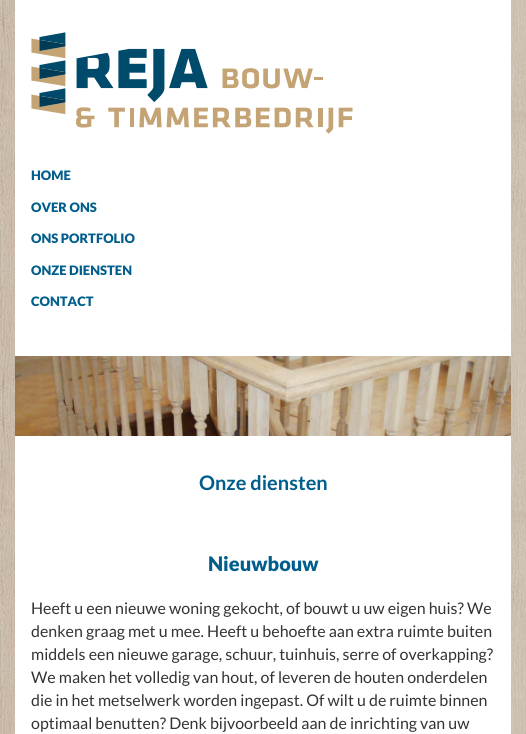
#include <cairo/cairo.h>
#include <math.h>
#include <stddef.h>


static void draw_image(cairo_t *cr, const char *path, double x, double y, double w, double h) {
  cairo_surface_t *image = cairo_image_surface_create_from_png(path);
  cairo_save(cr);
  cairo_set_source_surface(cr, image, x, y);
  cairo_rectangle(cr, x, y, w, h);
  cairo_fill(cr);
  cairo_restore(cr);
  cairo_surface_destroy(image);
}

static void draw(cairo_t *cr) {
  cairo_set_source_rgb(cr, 1, 1, 1);
  cairo_paint(cr);
  draw_image(cr, "images/1.png", 0, 0, 526, 734);
  cairo_set_source_rgb(cr, 1, 1, 1);
  cairo_rectangle(cr, 15, 0, 496, 356);
  cairo_fill(cr);
  draw_image(cr, "images/2.png", 31, 32, 322, 102);
  draw_image(cr, "images/3.png", 15, 356, 496, 80);
  cairo_rectangle(cr, 15, 436, 496, 298);
  cairo_fill(cr);
  cairo_select_font_face(cr, "Lato Black", CAIRO_FONT_SLANT_NORMAL, CAIRO_FONT_WEIGHT_NORMAL);
  cairo_set_font_size(cr, 13);
  cairo_set_source_rgb(cr, 0, 93 / 255.0, 140 / 255.0);
  cairo_move_to(cr, 31, 180);
  cairo_show_text(cr, "HOME");
  cairo_move_to(cr, 31, 212);
  cairo_show_text(cr, "OVER ONS");
  cairo_move_to(cr, 31, 243);
  cairo_show_text(cr, "ONS PORTFOLIO");
  cairo_move_to(cr, 31, 275);
  cairo_show_text(cr, "ONZE DIENSTEN");
  cairo_move_to(cr, 31, 306);
  cairo_show_text(cr, "CONTACT");
  cairo_select_font_face(cr, "Lato", CAIRO_FONT_SLANT_NORMAL, CAIRO_FONT_WEIGHT_BOLD);
  cairo_set_font_size(cr, 20);
  cairo_move_to(cr, 199, 490);
  cairo_show_text(cr, "Onze diensten");
  cairo_select_font_face(cr, "Lato Black", CAIRO_FONT_SLANT_NORMAL, CAIRO_FONT_WEIGHT_NORMAL);
  cairo_move_to(cr, 208, 571);
  cairo_show_text(cr, "Nieuwbouw");
  cairo_select_font_face(cr, "Lato", CAIRO_FONT_SLANT_NORMAL, CAIRO_FONT_WEIGHT_NORMAL);
  cairo_set_font_size(cr, 16);
  cairo_set_source_rgb(cr, 51 / 255.0, 51 / 255.0, 51 / 255.0);
  cairo_move_to(cr, 31, 614);
  cairo_show_text(cr, "Heeft u een nieuwe woning gekocht, of bouwt u uw eigen huis? We");
  cairo_move_to(cr, 31, 637);
  cairo_show_text(cr, "denken graag met u mee. Heeft u behoefte aan extra ruimte buiten");
  cairo_move_to(cr, 31, 660);
  cairo_show_text(cr, "middels een nieuwe garage, schuur, tuinhuis, serre of overkapping?");
  cairo_move_to(cr, 31, 683);
  cairo_show_text(cr, "We maken het volledig van hout, of leveren de houten onderdelen");
  cairo_move_to(cr, 31, 706);
  cairo_show_text(cr, "die in het metselwerk worden ingepast. Of wilt u de ruimte binnen");
  cairo_move_to(cr, 31, 729);
  cairo_show_text(cr, "optimaal benutten? Denk bijvoorbeeld aan de inrichting van uw");
}

int main(void) {
  cairo_surface_t *surface = cairo_image_surface_create(CAIRO_FORMAT_RGB24, 526, 734);
  cairo_t *cr = cairo_create(surface);
  cairo_font_options_t *options = cairo_font_options_create();
  cairo_font_options_set_hint_metrics(options, CAIRO_HINT_METRICS_OFF);
  cairo_font_options_set_hint_style(options, CAIRO_HINT_STYLE_NONE);
  cairo_set_font_options(cr, options);
  cairo_set_miter_limit(cr, 4);
  draw(cr);
  cairo_surface_write_to_png(surface, "out.png");
  cairo_font_options_destroy(options);
  cairo_destroy(cr);
  cairo_surface_destroy(surface);
  return 0;
}
